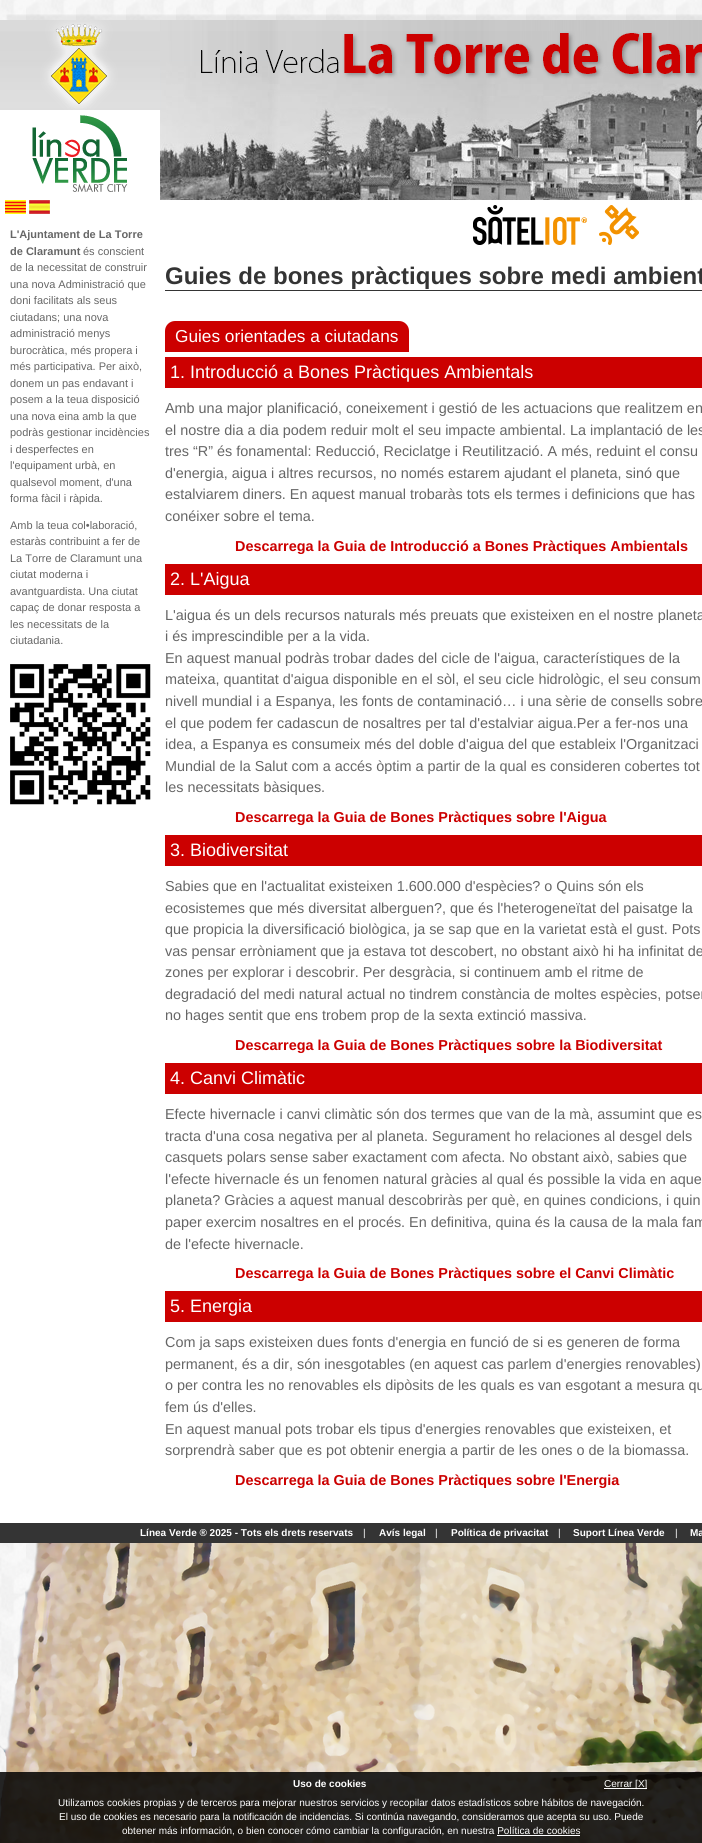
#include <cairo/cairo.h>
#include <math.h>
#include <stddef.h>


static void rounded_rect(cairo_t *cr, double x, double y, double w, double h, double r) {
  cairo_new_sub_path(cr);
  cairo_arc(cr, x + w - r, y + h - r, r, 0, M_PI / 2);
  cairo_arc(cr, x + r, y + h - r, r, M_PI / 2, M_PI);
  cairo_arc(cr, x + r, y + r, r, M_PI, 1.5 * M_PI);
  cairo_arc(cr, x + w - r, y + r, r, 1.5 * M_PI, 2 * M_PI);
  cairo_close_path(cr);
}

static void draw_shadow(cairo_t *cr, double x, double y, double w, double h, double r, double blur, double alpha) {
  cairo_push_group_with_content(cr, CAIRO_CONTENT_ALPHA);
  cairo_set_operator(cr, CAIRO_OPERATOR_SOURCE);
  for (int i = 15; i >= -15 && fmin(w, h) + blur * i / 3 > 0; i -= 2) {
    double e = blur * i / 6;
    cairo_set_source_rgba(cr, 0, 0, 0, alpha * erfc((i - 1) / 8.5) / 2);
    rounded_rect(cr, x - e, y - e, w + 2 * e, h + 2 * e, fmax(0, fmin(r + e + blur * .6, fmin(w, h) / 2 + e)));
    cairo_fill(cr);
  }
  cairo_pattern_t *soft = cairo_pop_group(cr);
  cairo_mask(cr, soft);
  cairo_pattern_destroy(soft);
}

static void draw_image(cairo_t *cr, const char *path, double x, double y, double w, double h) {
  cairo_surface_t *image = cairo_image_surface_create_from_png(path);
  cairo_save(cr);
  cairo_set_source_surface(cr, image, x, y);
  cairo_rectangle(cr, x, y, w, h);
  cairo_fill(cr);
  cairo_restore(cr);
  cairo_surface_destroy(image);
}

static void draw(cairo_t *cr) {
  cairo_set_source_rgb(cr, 1, 1, 1);
  cairo_paint(cr);
  draw_image(cr, "images/1.png", 0, 0, 702, 1843);
  cairo_set_source_rgb(cr, 0, 0, 0);
  draw_shadow(cr, 7, 15, 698, 1523, 0, 1, 0.07);
  cairo_set_source_rgb(cr, 1, 1, 1);
  cairo_rectangle(cr, 0, 110, 702, 1413);
  cairo_fill(cr);
  draw_image(cr, "images/2.png", 0, 20, 702, 90);
  draw_image(cr, "images/3.png", 32, 115, 96, 77);
  draw_image(cr, "images/4.png", 160, 110, 542, 90);
  draw_image(cr, "images/5.png", 473, 205, 166, 40);
  draw_image(cr, "images/6.png", 5, 200, 21, 14);
  draw_image(cr, "images/7.png", 29, 200, 21, 14);
  draw_image(cr, "images/8.png", 10, 664, 141, 141);
  cairo_set_source_rgb(cr, 52 / 255.0, 52 / 255.0, 52 / 255.0);
  cairo_rectangle(cr, 165, 290, 537, 1);
  cairo_fill(cr);
  cairo_set_source_rgb(cr, 204 / 255.0, 0, 0);
  cairo_new_path(cr);
  cairo_move_to(cr, 175, 321);
  cairo_line_to(cr, 399, 321);
  cairo_curve_to(cr, 404.5, 321, 409, 325.5, 409, 331);
  cairo_line_to(cr, 409, 352);
  cairo_line_to(cr, 165, 352);
  cairo_line_to(cr, 165, 331);
  cairo_curve_to(cr, 165, 325.5, 169.5, 321, 175, 321);
  cairo_close_path(cr);
  cairo_fill(cr);
  cairo_rectangle(cr, 165, 357, 537, 31);
  cairo_fill(cr);
  cairo_rectangle(cr, 165, 564, 537, 31);
  cairo_fill(cr);
  cairo_rectangle(cr, 165, 835, 537, 31);
  cairo_fill(cr);
  cairo_rectangle(cr, 165, 1063, 537, 31);
  cairo_fill(cr);
  cairo_rectangle(cr, 165, 1291, 537, 31);
  cairo_fill(cr);
  cairo_set_source_rgb(cr, 52 / 255.0, 52 / 255.0, 52 / 255.0);
  cairo_rectangle(cr, 0, 1523, 702, 20);
  cairo_fill(cr);
  cairo_set_source_rgba(cr, 0, 0, 0, 0.85);
  cairo_rectangle(cr, 0, 1772, 702, 71);
  cairo_fill(cr);
  cairo_set_source_rgb(cr, 1, 1, 1);
  cairo_rectangle(cr, 604, 1788, 43, 1);
  cairo_fill(cr);
  cairo_rectangle(cr, 497, 1835, 83, 1);
  cairo_fill(cr);
  cairo_select_font_face(cr, "Liberation Sans", CAIRO_FONT_SLANT_NORMAL, CAIRO_FONT_WEIGHT_BOLD);
  cairo_set_font_size(cr, 11);
  cairo_set_source_rgb(cr, 102 / 255.0, 102 / 255.0, 102 / 255.0);
  cairo_move_to(cr, 10, 238);
  cairo_show_text(cr, "L'Ajuntament de La Torre");
  cairo_move_to(cr, 10, 255);
  cairo_show_text(cr, "de Claramunt");
  cairo_select_font_face(cr, "Liberation Sans", CAIRO_FONT_SLANT_NORMAL, CAIRO_FONT_WEIGHT_NORMAL);
  cairo_move_to(cr, 83, 255);
  cairo_show_text(cr, "és conscient");
  cairo_move_to(cr, 10, 271);
  cairo_show_text(cr, "de la necessitat de construir");
  cairo_move_to(cr, 10, 288);
  cairo_show_text(cr, "una nova Administració que");
  cairo_move_to(cr, 10, 304);
  cairo_show_text(cr, "doni facilitats als seus");
  cairo_move_to(cr, 10, 321);
  cairo_show_text(cr, "ciutadans; una nova");
  cairo_move_to(cr, 10, 337);
  cairo_show_text(cr, "administració menys");
  cairo_move_to(cr, 10, 354);
  cairo_show_text(cr, "burocràtica, més propera i");
  cairo_move_to(cr, 10, 370);
  cairo_show_text(cr, "més participativa. Per això,");
  cairo_move_to(cr, 10, 387);
  cairo_show_text(cr, "donem un pas endavant i");
  cairo_move_to(cr, 10, 403);
  cairo_show_text(cr, "posem a la teua disposició");
  cairo_move_to(cr, 10, 420);
  cairo_show_text(cr, "una nova eina amb la que");
  cairo_move_to(cr, 10, 436);
  cairo_show_text(cr, "podràs gestionar incidències");
  cairo_move_to(cr, 10, 453);
  cairo_show_text(cr, "i desperfectes en");
  cairo_move_to(cr, 10, 469);
  cairo_show_text(cr, "l'equipament urbà, en");
  cairo_move_to(cr, 10, 486);
  cairo_show_text(cr, "qualsevol moment, d'una");
  cairo_move_to(cr, 10, 502);
  cairo_show_text(cr, "forma fàcil i ràpida.");
  cairo_move_to(cr, 10, 529);
  cairo_show_text(cr, "Amb la teua col•laboració,");
  cairo_move_to(cr, 10, 545);
  cairo_show_text(cr, "estaràs contribuint a fer de");
  cairo_move_to(cr, 10, 562);
  cairo_show_text(cr, "La Torre de Claramunt una");
  cairo_move_to(cr, 10, 578);
  cairo_show_text(cr, "ciutat moderna i");
  cairo_move_to(cr, 10, 595);
  cairo_show_text(cr, "avantguardista. Una ciutat");
  cairo_move_to(cr, 10, 611);
  cairo_show_text(cr, "capaç de donar resposta a");
  cairo_move_to(cr, 10, 628);
  cairo_show_text(cr, "les necessitats de la");
  cairo_move_to(cr, 10, 644);
  cairo_show_text(cr, "ciutadania.");
  cairo_select_font_face(cr, "Liberation Sans", CAIRO_FONT_SLANT_NORMAL, CAIRO_FONT_WEIGHT_BOLD);
  cairo_set_font_size(cr, 24);
  cairo_set_source_rgb(cr, 52 / 255.0, 52 / 255.0, 52 / 255.0);
  cairo_move_to(cr, 165, 284);
  cairo_show_text(cr, "Guies de bones pràctiques sobre medi ambient");
  cairo_select_font_face(cr, "Liberation Sans", CAIRO_FONT_SLANT_NORMAL, CAIRO_FONT_WEIGHT_NORMAL);
  cairo_set_font_size(cr, 17.25);
  cairo_set_source_rgb(cr, 1, 1, 1);
  cairo_move_to(cr, 175, 342);
  cairo_show_text(cr, "Guies orientades a ciutadans");
  cairo_set_font_size(cr, 18);
  cairo_move_to(cr, 170, 378);
  cairo_show_text(cr, "1. Introducció a Bones Pràctiques Ambientals");
  cairo_set_font_size(cr, 14.4);
  cairo_set_source_rgb(cr, 102 / 255.0, 102 / 255.0, 102 / 255.0);
  cairo_move_to(cr, 165, 413);
  cairo_show_text(cr, "Amb una major planificació, coneixement i gestió de les actuacions que realitzem en");
  cairo_move_to(cr, 165, 435);
  cairo_show_text(cr, "el nostre dia a dia podem reduir molt el seu impacte ambiental. La implantació de les");
  cairo_move_to(cr, 165, 456);
  cairo_show_text(cr, "tres “R” és fonamental: Reducció, Reciclatge i Reutilització. A més, reduint el consu");
  cairo_move_to(cr, 165, 478);
  cairo_show_text(cr, "d'energia, aigua i altres recursos, no només estarem ajudant el planeta, sinó que");
  cairo_move_to(cr, 165, 499);
  cairo_show_text(cr, "estalviarem diners. En aquest manual trobaràs tots els termes i definicions que has");
  cairo_move_to(cr, 165, 521);
  cairo_show_text(cr, "conéixer sobre el tema.");
  cairo_select_font_face(cr, "Liberation Sans", CAIRO_FONT_SLANT_NORMAL, CAIRO_FONT_WEIGHT_BOLD);
  cairo_set_source_rgb(cr, 204 / 255.0, 0, 0);
  cairo_move_to(cr, 235, 551);
  cairo_show_text(cr, "Descarrega la Guia de Introducció a Bones Pràctiques Ambientals");
  cairo_select_font_face(cr, "Liberation Sans", CAIRO_FONT_SLANT_NORMAL, CAIRO_FONT_WEIGHT_NORMAL);
  cairo_set_font_size(cr, 18);
  cairo_set_source_rgb(cr, 1, 1, 1);
  cairo_move_to(cr, 170, 585);
  cairo_show_text(cr, "2. L'Aigua");
  cairo_set_font_size(cr, 14.4);
  cairo_set_source_rgb(cr, 102 / 255.0, 102 / 255.0, 102 / 255.0);
  cairo_move_to(cr, 165, 620);
  cairo_show_text(cr, "L'aigua és un dels recursos naturals més preuats que existeixen en el nostre planeta");
  cairo_move_to(cr, 165, 641);
  cairo_show_text(cr, "i és imprescindible per a la vida.");
  cairo_move_to(cr, 165, 663);
  cairo_show_text(cr, "En aquest manual podràs trobar dades del cicle de l'aigua, característiques de la");
  cairo_move_to(cr, 165, 684);
  cairo_show_text(cr, "mateixa, quantitat d'aigua disponible en el sòl, el seu cicle hidrològic, el seu consum");
  cairo_move_to(cr, 165, 706);
  cairo_show_text(cr, "nivell mundial i a Espanya, les fonts de contaminació… i una sèrie de consells sobre");
  cairo_move_to(cr, 165, 728);
  cairo_show_text(cr, "el que podem fer cadascun de nosaltres per tal d'estalviar aigua.Per a fer-nos una");
  cairo_move_to(cr, 165, 749);
  cairo_show_text(cr, "idea, a Espanya es consumeix més del doble d'aigua del que estableix l'Organitzaci");
  cairo_move_to(cr, 165, 771);
  cairo_show_text(cr, "Mundial de la Salut com a accés òptim a partir de la qual es consideren cobertes tot");
  cairo_move_to(cr, 165, 792);
  cairo_show_text(cr, "les necessitats bàsiques.");
  cairo_select_font_face(cr, "Liberation Sans", CAIRO_FONT_SLANT_NORMAL, CAIRO_FONT_WEIGHT_BOLD);
  cairo_set_source_rgb(cr, 204 / 255.0, 0, 0);
  cairo_move_to(cr, 235, 822);
  cairo_show_text(cr, "Descarrega la Guia de Bones Pràctiques sobre l'Aigua");
  cairo_select_font_face(cr, "Liberation Sans", CAIRO_FONT_SLANT_NORMAL, CAIRO_FONT_WEIGHT_NORMAL);
  cairo_set_font_size(cr, 18);
  cairo_set_source_rgb(cr, 1, 1, 1);
  cairo_move_to(cr, 170, 856);
  cairo_show_text(cr, "3. Biodiversitat");
  cairo_set_font_size(cr, 14.4);
  cairo_set_source_rgb(cr, 102 / 255.0, 102 / 255.0, 102 / 255.0);
  cairo_move_to(cr, 165, 891);
  cairo_show_text(cr, "Sabies que en l'actualitat existeixen 1.600.000 d'espècies? o Quins són els");
  cairo_move_to(cr, 165, 913);
  cairo_show_text(cr, "ecosistemes que més diversitat alberguen?, que és l'heterogeneïtat del paisatge la");
  cairo_move_to(cr, 165, 934);
  cairo_show_text(cr, "que propicia la diversificació biològica, ja se sap que en la varietat està el gust. Pots");
  cairo_move_to(cr, 165, 956);
  cairo_show_text(cr, "vas pensar erròniament que ja estava tot descobert, no obstant això hi ha infinitat de");
  cairo_move_to(cr, 165, 977);
  cairo_show_text(cr, "zones per explorar i descobrir. Per desgràcia, si continuem amb el ritme de");
  cairo_move_to(cr, 165, 999);
  cairo_show_text(cr, "degradació del medi natural actual no tindrem constància de moltes espècies, potser");
  cairo_move_to(cr, 165, 1020);
  cairo_show_text(cr, "no hages sentit que ens trobem prop de la sexta extinció massiva.");
  cairo_select_font_face(cr, "Liberation Sans", CAIRO_FONT_SLANT_NORMAL, CAIRO_FONT_WEIGHT_BOLD);
  cairo_set_source_rgb(cr, 204 / 255.0, 0, 0);
  cairo_move_to(cr, 235, 1050);
  cairo_show_text(cr, "Descarrega la Guia de Bones Pràctiques sobre la Biodiversitat");
  cairo_select_font_face(cr, "Liberation Sans", CAIRO_FONT_SLANT_NORMAL, CAIRO_FONT_WEIGHT_NORMAL);
  cairo_set_font_size(cr, 18);
  cairo_set_source_rgb(cr, 1, 1, 1);
  cairo_move_to(cr, 170, 1084);
  cairo_show_text(cr, "4. Canvi Climàtic");
  cairo_set_font_size(cr, 14.4);
  cairo_set_source_rgb(cr, 102 / 255.0, 102 / 255.0, 102 / 255.0);
  cairo_move_to(cr, 165, 1119);
  cairo_show_text(cr, "Efecte hivernacle i canvi climàtic són dos termes que van de la mà, assumint que es");
  cairo_move_to(cr, 165, 1141);
  cairo_show_text(cr, "tracta d'una cosa negativa per al planeta. Segurament ho relaciones al desgel dels");
  cairo_move_to(cr, 165, 1162);
  cairo_show_text(cr, "casquets polars sense saber exactament com afecta. No obstant això, sabies que");
  cairo_move_to(cr, 165, 1184);
  cairo_show_text(cr, "l'efecte hivernacle és un fenomen natural gràcies al qual és possible la vida en aque");
  cairo_move_to(cr, 165, 1205);
  cairo_show_text(cr, "planeta? Gràcies a aquest manual descobriràs per què, en quines condicions, i quin");
  cairo_move_to(cr, 165, 1227);
  cairo_show_text(cr, "paper exercim nosaltres en el procés. En definitiva, quina és la causa de la mala fam");
  cairo_move_to(cr, 165, 1249);
  cairo_show_text(cr, "de l'efecte hivernacle.");
  cairo_select_font_face(cr, "Liberation Sans", CAIRO_FONT_SLANT_NORMAL, CAIRO_FONT_WEIGHT_BOLD);
  cairo_set_source_rgb(cr, 204 / 255.0, 0, 0);
  cairo_move_to(cr, 235, 1278);
  cairo_show_text(cr, "Descarrega la Guia de Bones Pràctiques sobre el Canvi Climàtic");
  cairo_select_font_face(cr, "Liberation Sans", CAIRO_FONT_SLANT_NORMAL, CAIRO_FONT_WEIGHT_NORMAL);
  cairo_set_font_size(cr, 18);
  cairo_set_source_rgb(cr, 1, 1, 1);
  cairo_move_to(cr, 170, 1312);
  cairo_show_text(cr, "5. Energia");
  cairo_set_font_size(cr, 14.4);
  cairo_set_source_rgb(cr, 102 / 255.0, 102 / 255.0, 102 / 255.0);
  cairo_move_to(cr, 165, 1347);
  cairo_show_text(cr, "Com ja saps existeixen dues fonts d'energia en funció de si es generen de forma");
  cairo_move_to(cr, 165, 1369);
  cairo_show_text(cr, "permanent, és a dir, són inesgotables (en aquest cas parlem d'energies renovables)");
  cairo_move_to(cr, 165, 1390);
  cairo_show_text(cr, "o per contra les no renovables els dipòsits de les quals es van esgotant a mesura qu");
  cairo_move_to(cr, 165, 1412);
  cairo_show_text(cr, "fem ús d'elles.");
  cairo_move_to(cr, 165, 1434);
  cairo_show_text(cr, "En aquest manual pots trobar els tipus d'energies renovables que existeixen, et");
  cairo_move_to(cr, 165, 1455);
  cairo_show_text(cr, "sorprendrà saber que es pot obtenir energia a partir de les ones o de la biomassa.");
  cairo_select_font_face(cr, "Liberation Sans", CAIRO_FONT_SLANT_NORMAL, CAIRO_FONT_WEIGHT_BOLD);
  cairo_set_source_rgb(cr, 204 / 255.0, 0, 0);
  cairo_move_to(cr, 235, 1485);
  cairo_show_text(cr, "Descarrega la Guia de Bones Pràctiques sobre l'Energia");
  cairo_set_font_size(cr, 10);
  cairo_set_source_rgb(cr, 1, 1, 1);
  cairo_move_to(cr, 140, 1536);
  cairo_show_text(cr, "Línea Verde ® 2025 - Tots els drets reservats");
  cairo_select_font_face(cr, "Liberation Sans", CAIRO_FONT_SLANT_NORMAL, CAIRO_FONT_WEIGHT_NORMAL);
  cairo_move_to(cr, 363, 1536);
  cairo_show_text(cr, "|");
  cairo_select_font_face(cr, "Liberation Sans", CAIRO_FONT_SLANT_NORMAL, CAIRO_FONT_WEIGHT_BOLD);
  cairo_move_to(cr, 379, 1536);
  cairo_show_text(cr, "Avís legal");
  cairo_select_font_face(cr, "Liberation Sans", CAIRO_FONT_SLANT_NORMAL, CAIRO_FONT_WEIGHT_NORMAL);
  cairo_move_to(cr, 435, 1536);
  cairo_show_text(cr, "|");
  cairo_select_font_face(cr, "Liberation Sans", CAIRO_FONT_SLANT_NORMAL, CAIRO_FONT_WEIGHT_BOLD);
  cairo_move_to(cr, 451, 1536);
  cairo_show_text(cr, "Política de privacitat");
  cairo_select_font_face(cr, "Liberation Sans", CAIRO_FONT_SLANT_NORMAL, CAIRO_FONT_WEIGHT_NORMAL);
  cairo_move_to(cr, 558, 1536);
  cairo_show_text(cr, "|");
  cairo_select_font_face(cr, "Liberation Sans", CAIRO_FONT_SLANT_NORMAL, CAIRO_FONT_WEIGHT_BOLD);
  cairo_move_to(cr, 573, 1536);
  cairo_show_text(cr, "Suport Línea Verde");
  cairo_select_font_face(cr, "Liberation Sans", CAIRO_FONT_SLANT_NORMAL, CAIRO_FONT_WEIGHT_NORMAL);
  cairo_move_to(cr, 675, 1536);
  cairo_show_text(cr, "|");
  cairo_select_font_face(cr, "Liberation Sans", CAIRO_FONT_SLANT_NORMAL, CAIRO_FONT_WEIGHT_BOLD);
  cairo_move_to(cr, 690, 1536);
  cairo_show_text(cr, "Ma");
  cairo_move_to(cr, 293, 1787);
  cairo_show_text(cr, "Uso de cookies");
  cairo_select_font_face(cr, "Liberation Sans", CAIRO_FONT_SLANT_NORMAL, CAIRO_FONT_WEIGHT_NORMAL);
  cairo_move_to(cr, 604, 1787);
  cairo_show_text(cr, "Cerrar [X]");
  cairo_move_to(cr, 58, 1806);
  cairo_show_text(cr, "Utilizamos cookies propias y de terceros para mejorar nuestros servicios y recopilar datos estadísticos sobre hábitos de navegación.");
  cairo_move_to(cr, 59, 1820);
  cairo_show_text(cr, "El uso de cookies es necesario para la notificación de incidencias. Si continúa navegando, consideramos que acepta su uso. Puede");
  cairo_move_to(cr, 122, 1834);
  cairo_show_text(cr, "obtener más información, o bien conocer cómo cambiar la configuración, en nuestra Política de cookies");
}

int main(void) {
  cairo_surface_t *surface = cairo_image_surface_create(CAIRO_FORMAT_RGB24, 702, 1843);
  cairo_t *cr = cairo_create(surface);
  cairo_font_options_t *options = cairo_font_options_create();
  cairo_font_options_set_hint_metrics(options, CAIRO_HINT_METRICS_OFF);
  cairo_font_options_set_hint_style(options, CAIRO_HINT_STYLE_NONE);
  cairo_set_font_options(cr, options);
  cairo_set_miter_limit(cr, 4);
  draw(cr);
  cairo_surface_write_to_png(surface, "out.png");
  cairo_font_options_destroy(options);
  cairo_destroy(cr);
  cairo_surface_destroy(surface);
  return 0;
}
